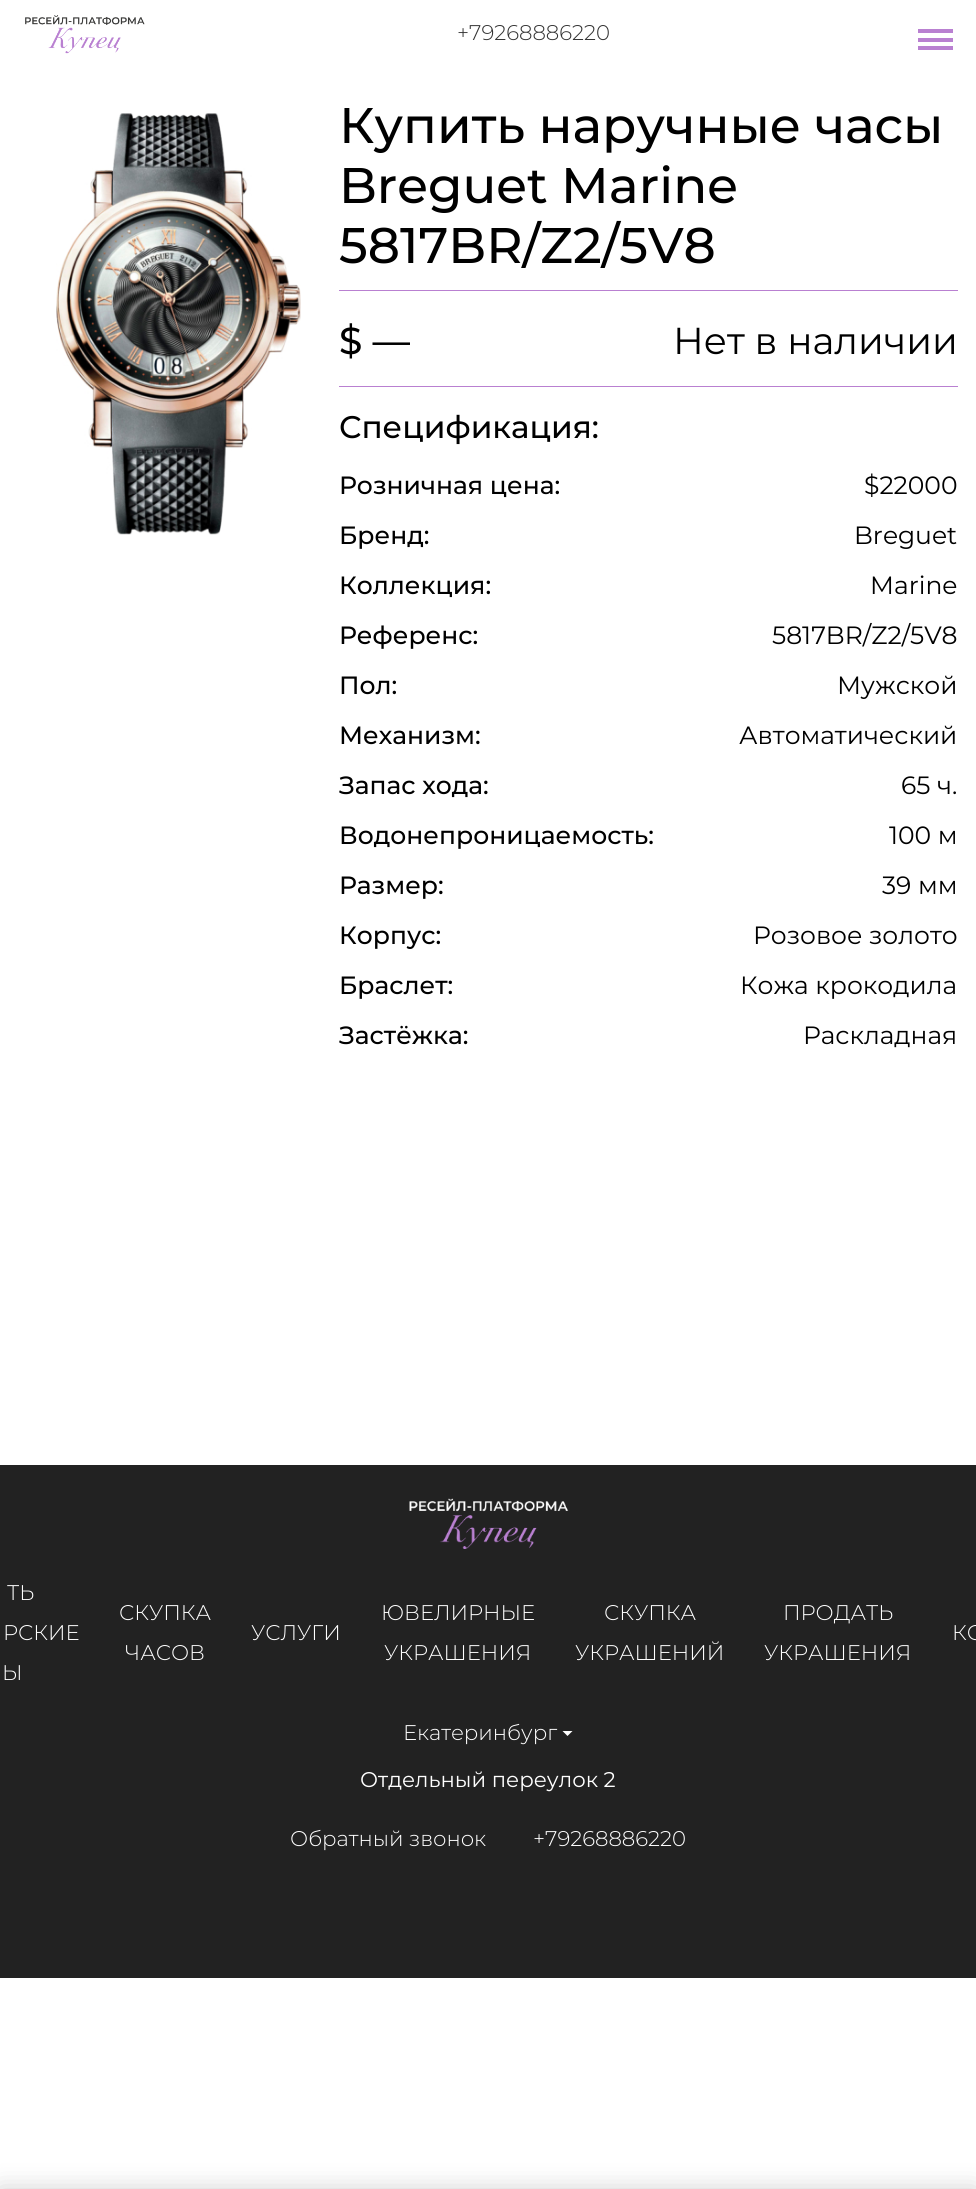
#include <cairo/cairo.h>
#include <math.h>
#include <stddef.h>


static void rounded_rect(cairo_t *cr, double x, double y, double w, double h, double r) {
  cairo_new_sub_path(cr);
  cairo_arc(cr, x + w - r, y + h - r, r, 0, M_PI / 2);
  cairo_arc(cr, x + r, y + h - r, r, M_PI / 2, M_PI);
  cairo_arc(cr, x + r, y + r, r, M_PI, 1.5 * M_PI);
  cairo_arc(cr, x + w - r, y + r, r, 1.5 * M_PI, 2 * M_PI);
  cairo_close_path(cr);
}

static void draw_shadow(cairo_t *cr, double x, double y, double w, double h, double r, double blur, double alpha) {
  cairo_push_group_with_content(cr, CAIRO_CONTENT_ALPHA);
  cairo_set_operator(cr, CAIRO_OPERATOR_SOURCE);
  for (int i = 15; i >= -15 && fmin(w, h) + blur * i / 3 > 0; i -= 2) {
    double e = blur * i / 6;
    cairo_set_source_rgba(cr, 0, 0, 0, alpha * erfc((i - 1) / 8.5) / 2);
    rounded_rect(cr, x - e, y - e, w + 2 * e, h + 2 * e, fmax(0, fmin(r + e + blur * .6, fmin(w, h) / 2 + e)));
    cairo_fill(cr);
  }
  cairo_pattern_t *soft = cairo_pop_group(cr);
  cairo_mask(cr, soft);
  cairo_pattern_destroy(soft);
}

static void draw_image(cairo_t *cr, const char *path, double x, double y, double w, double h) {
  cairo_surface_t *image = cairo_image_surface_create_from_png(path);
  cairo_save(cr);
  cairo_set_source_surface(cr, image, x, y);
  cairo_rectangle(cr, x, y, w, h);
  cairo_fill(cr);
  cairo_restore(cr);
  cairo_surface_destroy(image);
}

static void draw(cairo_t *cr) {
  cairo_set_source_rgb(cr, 1, 1, 1);
  cairo_paint(cr);
  draw_image(cr, "images/1.png", 25, 15, 120, 39);
  cairo_set_source_rgb(cr, 185 / 255.0, 128 / 255.0, 209 / 255.0);
  cairo_rectangle(cr, 918, 38, 35, 4);
  cairo_fill(cr);
  cairo_rectangle(cr, 918, 29, 35, 4);
  cairo_fill(cr);
  cairo_rectangle(cr, 918, 46, 35, 4);
  cairo_fill(cr);
  draw_image(cr, "images/2.png", 56, 113, 245, 422);
  cairo_rectangle(cr, 339, 290, 619, 1);
  cairo_fill(cr);
  cairo_rectangle(cr, 339, 386, 619, 1);
  cairo_fill(cr);
  cairo_set_source_rgb(cr, 34 / 255.0, 34 / 255.0, 34 / 255.0);
  cairo_rectangle(cr, 0, 1465, 976, 513);
  cairo_fill(cr);
  draw_image(cr, "images/3.png", 409, 1498, 160, 51);
  cairo_set_source_rgb(cr, 1, 1, 1);
  cairo_new_path(cr);
  cairo_move_to(cr, 562.5, 1731);
  cairo_line_to(cr, 572.5, 1731);
  cairo_line_to(cr, 567.5, 1736);
  cairo_close_path(cr);
  cairo_fill(cr);
  cairo_set_source_rgb(cr, 0, 0, 0);
  draw_shadow(cr, 0, 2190, 976, 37, 0, 12.5, 0.2);
  cairo_select_font_face(cr, "Montserrat Light", CAIRO_FONT_SLANT_NORMAL, CAIRO_FONT_WEIGHT_NORMAL);
  cairo_set_font_size(cr, 21.25);
  cairo_set_source_rgb(cr, 51 / 255.0, 51 / 255.0, 51 / 255.0);
  cairo_move_to(cr, 457, 40);
  cairo_show_text(cr, "+79268886220");
  cairo_select_font_face(cr, "Montserrat Medium", CAIRO_FONT_SLANT_NORMAL, CAIRO_FONT_WEIGHT_NORMAL);
  cairo_set_font_size(cr, 50);
  cairo_set_source_rgb(cr, 0, 0, 0);
  cairo_move_to(cr, 339, 143);
  cairo_show_text(cr, "Купить наручные часы");
  cairo_move_to(cr, 339, 203);
  cairo_show_text(cr, "Breguet Marine");
  cairo_move_to(cr, 339, 263);
  cairo_show_text(cr, "5817BR/Z2/5V8");
  cairo_set_font_size(cr, 37.5);
  cairo_move_to(cr, 339, 354);
  cairo_show_text(cr, "$ —");
  cairo_select_font_face(cr, "Montserrat", CAIRO_FONT_SLANT_NORMAL, CAIRO_FONT_WEIGHT_NORMAL);
  cairo_move_to(cr, 673, 354);
  cairo_show_text(cr, "Нет в наличии");
  cairo_select_font_face(cr, "Montserrat Medium", CAIRO_FONT_SLANT_NORMAL, CAIRO_FONT_WEIGHT_NORMAL);
  cairo_set_font_size(cr, 31.25);
  cairo_move_to(cr, 339, 438);
  cairo_show_text(cr, "Спецификация:");
  cairo_set_font_size(cr, 25);
  cairo_move_to(cr, 339, 494);
  cairo_show_text(cr, "Розничная цена:");
  cairo_select_font_face(cr, "Montserrat", CAIRO_FONT_SLANT_NORMAL, CAIRO_FONT_WEIGHT_NORMAL);
  cairo_move_to(cr, 864, 494);
  cairo_show_text(cr, "$22000");
  cairo_select_font_face(cr, "Montserrat Medium", CAIRO_FONT_SLANT_NORMAL, CAIRO_FONT_WEIGHT_NORMAL);
  cairo_move_to(cr, 339, 544);
  cairo_show_text(cr, "Бренд:");
  cairo_select_font_face(cr, "Montserrat", CAIRO_FONT_SLANT_NORMAL, CAIRO_FONT_WEIGHT_NORMAL);
  cairo_move_to(cr, 854, 544);
  cairo_show_text(cr, "Breguet");
  cairo_select_font_face(cr, "Montserrat Medium", CAIRO_FONT_SLANT_NORMAL, CAIRO_FONT_WEIGHT_NORMAL);
  cairo_move_to(cr, 339, 594);
  cairo_show_text(cr, "Коллекция:");
  cairo_select_font_face(cr, "Montserrat", CAIRO_FONT_SLANT_NORMAL, CAIRO_FONT_WEIGHT_NORMAL);
  cairo_move_to(cr, 870, 594);
  cairo_show_text(cr, "Marine");
  cairo_select_font_face(cr, "Montserrat Medium", CAIRO_FONT_SLANT_NORMAL, CAIRO_FONT_WEIGHT_NORMAL);
  cairo_move_to(cr, 339, 644);
  cairo_show_text(cr, "Референс:");
  cairo_select_font_face(cr, "Montserrat", CAIRO_FONT_SLANT_NORMAL, CAIRO_FONT_WEIGHT_NORMAL);
  cairo_move_to(cr, 772, 644);
  cairo_show_text(cr, "5817BR/Z2/5V8");
  cairo_select_font_face(cr, "Montserrat Medium", CAIRO_FONT_SLANT_NORMAL, CAIRO_FONT_WEIGHT_NORMAL);
  cairo_move_to(cr, 339, 694);
  cairo_show_text(cr, "Пол:");
  cairo_select_font_face(cr, "Montserrat", CAIRO_FONT_SLANT_NORMAL, CAIRO_FONT_WEIGHT_NORMAL);
  cairo_move_to(cr, 837, 694);
  cairo_show_text(cr, "Мужской");
  cairo_select_font_face(cr, "Montserrat Medium", CAIRO_FONT_SLANT_NORMAL, CAIRO_FONT_WEIGHT_NORMAL);
  cairo_move_to(cr, 339, 744);
  cairo_show_text(cr, "Механизм:");
  cairo_select_font_face(cr, "Montserrat", CAIRO_FONT_SLANT_NORMAL, CAIRO_FONT_WEIGHT_NORMAL);
  cairo_move_to(cr, 739, 744);
  cairo_show_text(cr, "Автоматический");
  cairo_select_font_face(cr, "Montserrat Medium", CAIRO_FONT_SLANT_NORMAL, CAIRO_FONT_WEIGHT_NORMAL);
  cairo_move_to(cr, 339, 794);
  cairo_show_text(cr, "Запас хода:");
  cairo_select_font_face(cr, "Montserrat", CAIRO_FONT_SLANT_NORMAL, CAIRO_FONT_WEIGHT_NORMAL);
  cairo_move_to(cr, 901, 794);
  cairo_show_text(cr, "65 ч.");
  cairo_select_font_face(cr, "Montserrat Medium", CAIRO_FONT_SLANT_NORMAL, CAIRO_FONT_WEIGHT_NORMAL);
  cairo_move_to(cr, 339, 844);
  cairo_show_text(cr, "Водонепроницаемость:");
  cairo_select_font_face(cr, "Montserrat", CAIRO_FONT_SLANT_NORMAL, CAIRO_FONT_WEIGHT_NORMAL);
  cairo_move_to(cr, 889, 844);
  cairo_show_text(cr, "100 м");
  cairo_select_font_face(cr, "Montserrat Medium", CAIRO_FONT_SLANT_NORMAL, CAIRO_FONT_WEIGHT_NORMAL);
  cairo_move_to(cr, 339, 894);
  cairo_show_text(cr, "Размер:");
  cairo_select_font_face(cr, "Montserrat", CAIRO_FONT_SLANT_NORMAL, CAIRO_FONT_WEIGHT_NORMAL);
  cairo_move_to(cr, 882, 894);
  cairo_show_text(cr, "39 мм");
  cairo_select_font_face(cr, "Montserrat Medium", CAIRO_FONT_SLANT_NORMAL, CAIRO_FONT_WEIGHT_NORMAL);
  cairo_move_to(cr, 339, 944);
  cairo_show_text(cr, "Корпус:");
  cairo_select_font_face(cr, "Montserrat", CAIRO_FONT_SLANT_NORMAL, CAIRO_FONT_WEIGHT_NORMAL);
  cairo_move_to(cr, 753, 944);
  cairo_show_text(cr, "Розовое золото");
  cairo_select_font_face(cr, "Montserrat Medium", CAIRO_FONT_SLANT_NORMAL, CAIRO_FONT_WEIGHT_NORMAL);
  cairo_move_to(cr, 339, 994);
  cairo_show_text(cr, "Браслет:");
  cairo_select_font_face(cr, "Montserrat", CAIRO_FONT_SLANT_NORMAL, CAIRO_FONT_WEIGHT_NORMAL);
  cairo_move_to(cr, 740, 994);
  cairo_show_text(cr, "Кожа крокодила");
  cairo_select_font_face(cr, "Montserrat Medium", CAIRO_FONT_SLANT_NORMAL, CAIRO_FONT_WEIGHT_NORMAL);
  cairo_move_to(cr, 339, 1044);
  cairo_show_text(cr, "Застёжка:");
  cairo_select_font_face(cr, "Montserrat", CAIRO_FONT_SLANT_NORMAL, CAIRO_FONT_WEIGHT_NORMAL);
  cairo_move_to(cr, 803, 1044);
  cairo_show_text(cr, "Раскладная");
  cairo_select_font_face(cr, "Montserrat Light", CAIRO_FONT_SLANT_NORMAL, CAIRO_FONT_WEIGHT_NORMAL);
  cairo_set_font_size(cr, 21.25);
  cairo_set_source_rgb(cr, 1, 1, 1);
  cairo_move_to(cr, 7, 1600);
  cairo_show_text(cr, "ТЬ");
  cairo_move_to(cr, 3, 1640);
  cairo_show_text(cr, "РСКИЕ");
  cairo_move_to(cr, 2, 1680);
  cairo_show_text(cr, "Ы");
  cairo_move_to(cr, 119, 1620);
  cairo_show_text(cr, "СКУПКА");
  cairo_move_to(cr, 125, 1660);
  cairo_show_text(cr, "ЧАСОВ");
  cairo_move_to(cr, 251, 1640);
  cairo_show_text(cr, "УСЛУГИ");
  cairo_move_to(cr, 381, 1620);
  cairo_show_text(cr, "ЮВЕЛИРНЫЕ");
  cairo_move_to(cr, 384, 1660);
  cairo_show_text(cr, "УКРАШЕНИЯ");
  cairo_move_to(cr, 604, 1620);
  cairo_show_text(cr, "СКУПКА");
  cairo_move_to(cr, 575, 1660);
  cairo_show_text(cr, "УКРАШЕНИЙ");
  cairo_move_to(cr, 783, 1620);
  cairo_show_text(cr, "ПРОДАТЬ");
  cairo_move_to(cr, 764, 1660);
  cairo_show_text(cr, "УКРАШЕНИЯ");
  cairo_move_to(cr, 952, 1640);
  cairo_show_text(cr, "КО");
  cairo_move_to(cr, 403, 1740);
  cairo_show_text(cr, "Екатеринбург");
  cairo_select_font_face(cr, "Montserrat", CAIRO_FONT_SLANT_NORMAL, CAIRO_FONT_WEIGHT_NORMAL);
  cairo_move_to(cr, 360, 1787);
  cairo_show_text(cr, "Отдельный переулок 2");
  cairo_select_font_face(cr, "Montserrat Light", CAIRO_FONT_SLANT_NORMAL, CAIRO_FONT_WEIGHT_NORMAL);
  cairo_move_to(cr, 290, 1846);
  cairo_show_text(cr, "Обратный звонок");
  cairo_move_to(cr, 533, 1846);
  cairo_show_text(cr, "+79268886220");
}

int main(void) {
  cairo_surface_t *surface = cairo_image_surface_create(CAIRO_FORMAT_RGB24, 976, 2189);
  cairo_t *cr = cairo_create(surface);
  cairo_font_options_t *options = cairo_font_options_create();
  cairo_font_options_set_hint_metrics(options, CAIRO_HINT_METRICS_OFF);
  cairo_font_options_set_hint_style(options, CAIRO_HINT_STYLE_NONE);
  cairo_set_font_options(cr, options);
  cairo_set_miter_limit(cr, 4);
  draw(cr);
  cairo_surface_write_to_png(surface, "out.png");
  cairo_font_options_destroy(options);
  cairo_destroy(cr);
  cairo_surface_destroy(surface);
  return 0;
}
